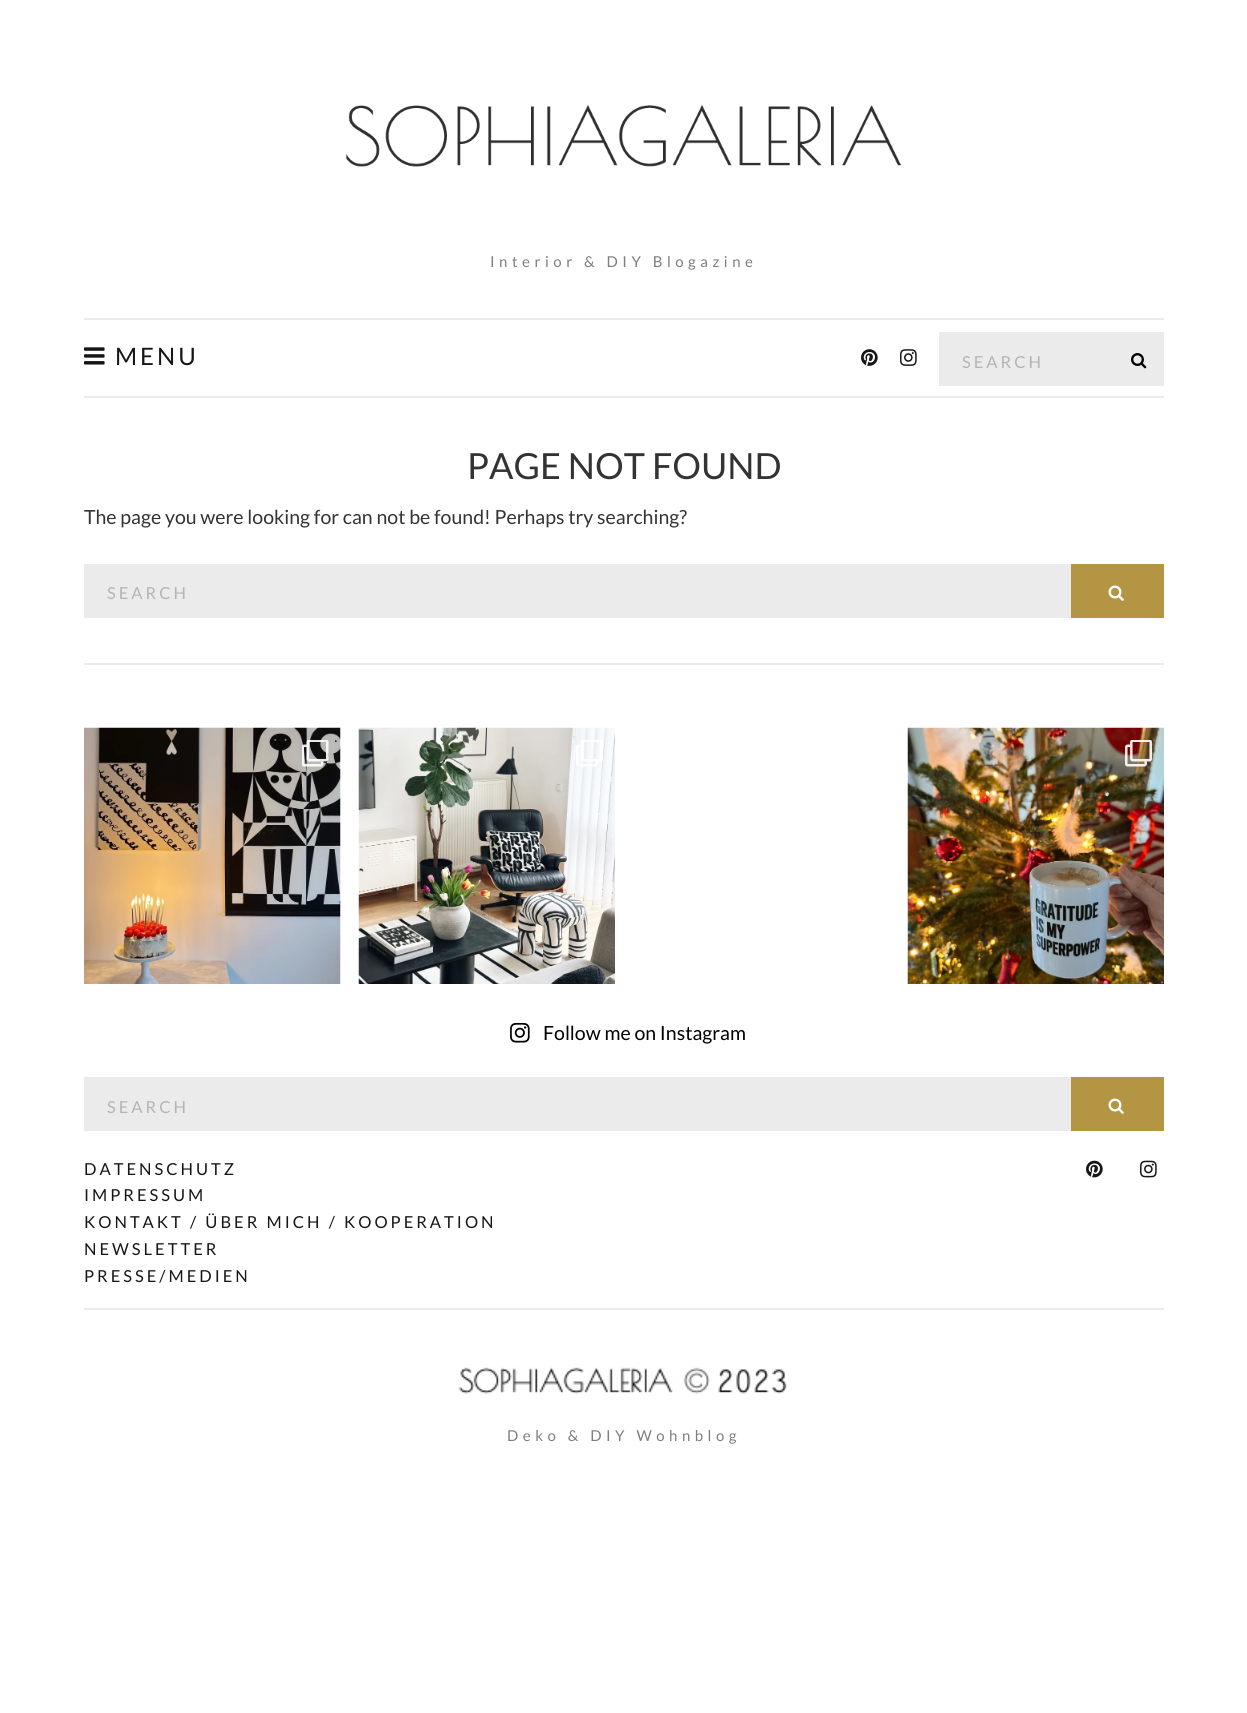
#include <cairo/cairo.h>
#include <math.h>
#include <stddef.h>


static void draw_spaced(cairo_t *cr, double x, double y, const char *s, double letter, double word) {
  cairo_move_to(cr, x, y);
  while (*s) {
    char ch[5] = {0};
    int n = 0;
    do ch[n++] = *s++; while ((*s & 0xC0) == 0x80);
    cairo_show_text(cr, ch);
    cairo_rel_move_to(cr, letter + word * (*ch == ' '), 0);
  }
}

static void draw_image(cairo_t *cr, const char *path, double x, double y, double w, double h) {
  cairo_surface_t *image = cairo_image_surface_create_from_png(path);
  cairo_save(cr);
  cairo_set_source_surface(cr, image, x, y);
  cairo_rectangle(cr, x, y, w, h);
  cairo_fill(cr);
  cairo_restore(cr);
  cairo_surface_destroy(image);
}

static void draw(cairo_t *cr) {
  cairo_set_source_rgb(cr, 1, 1, 1);
  cairo_paint(cr);
  draw_image(cr, "images/1.png", 345, 105, 557, 62);
  cairo_set_source_rgb(cr, 235 / 255.0, 235 / 255.0, 235 / 255.0);
  cairo_rectangle(cr, 84, 318, 1080, 2);
  cairo_fill(cr);
  cairo_rectangle(cr, 84, 396, 1080, 2);
  cairo_fill(cr);
  draw_image(cr, "images/2.png", 84, 347, 21, 18);
  draw_image(cr, "images/3.png", 861, 349, 17, 17);
  draw_image(cr, "images/4.png", 900, 349, 17, 17);
  cairo_rectangle(cr, 939, 332, 225, 54);
  cairo_fill(cr);
  draw_image(cr, "images/5.png", 1131, 353, 16, 16);
  cairo_rectangle(cr, 84, 564, 987, 54);
  cairo_fill(cr);
  cairo_set_source_rgb(cr, 180 / 255.0, 149 / 255.0, 67 / 255.0);
  cairo_rectangle(cr, 1071, 564, 93, 54);
  cairo_fill(cr);
  draw_image(cr, "images/6.png", 1108, 585, 16, 16);
  cairo_set_source_rgb(cr, 235 / 255.0, 235 / 255.0, 235 / 255.0);
  cairo_rectangle(cr, 84, 663, 1080, 2);
  cairo_fill(cr);
  draw_image(cr, "images/7.png", 84, 727, 257, 257);
  draw_image(cr, "images/8.png", 302, 740, 27, 27);
  draw_image(cr, "images/9.png", 358, 727, 257, 257);
  draw_image(cr, "images/10.png", 576, 740, 27, 27);
  draw_image(cr, "images/11.png", 907, 727, 257, 257);
  draw_image(cr, "images/12.png", 1125, 740, 27, 27);
  draw_image(cr, "images/13.png", 510, 1023, 20, 20);
  cairo_rectangle(cr, 84, 1077, 987, 54);
  cairo_fill(cr);
  cairo_set_source_rgb(cr, 180 / 255.0, 149 / 255.0, 67 / 255.0);
  cairo_rectangle(cr, 1071, 1077, 93, 54);
  cairo_fill(cr);
  draw_image(cr, "images/6.png", 1108, 1098, 16, 16);
  cairo_set_source_rgb(cr, 235 / 255.0, 235 / 255.0, 235 / 255.0);
  cairo_rectangle(cr, 84, 1308, 1080, 2);
  cairo_fill(cr);
  draw_image(cr, "images/14.png", 1086, 1160, 17, 18);
  draw_image(cr, "images/15.png", 1140, 1160, 17, 18);
  draw_image(cr, "images/16.png", 458, 1367, 329, 27);
  cairo_select_font_face(cr, "Lato", CAIRO_FONT_SLANT_NORMAL, CAIRO_FONT_WEIGHT_NORMAL);
  cairo_set_font_size(cr, 15);
  cairo_set_source_rgb(cr, 126 / 255.0, 126 / 255.0, 126 / 255.0);
  draw_spaced(cr, 490, 267, "Interior & DIY Blogazine", 4.5, 0);
  cairo_set_font_size(cr, 24);
  cairo_set_source_rgb(cr, 22 / 255.0, 22 / 255.0, 22 / 255.0);
  draw_spaced(cr, 115, 365, "MENU", 3, 0);
  cairo_set_font_size(cr, 16.5);
  cairo_set_source_rgb(cr, 180 / 255.0, 180 / 255.0, 180 / 255.0);
  draw_spaced(cr, 962, 368, "SEARCH", 3, 0);
  cairo_set_font_size(cr, 36);
  cairo_set_source_rgb(cr, 51 / 255.0, 51 / 255.0, 51 / 255.0);
  cairo_move_to(cr, 467, 479);
  cairo_show_text(cr, "PAGE NOT FOUND");
  cairo_set_font_size(cr, 19.5);
  cairo_move_to(cr, 84, 524);
  cairo_show_text(cr, "The page you were looking for can not be found! Perhaps try searching?");
  cairo_set_font_size(cr, 16.5);
  cairo_set_source_rgb(cr, 180 / 255.0, 180 / 255.0, 180 / 255.0);
  draw_spaced(cr, 107, 599, "SEARCH", 3, 0);
  cairo_set_font_size(cr, 19.5);
  cairo_set_source_rgb(cr, 0, 0, 0);
  cairo_move_to(cr, 543, 1040);
  cairo_show_text(cr, "Follow me on Instagram");
  cairo_set_font_size(cr, 16.5);
  cairo_set_source_rgb(cr, 180 / 255.0, 180 / 255.0, 180 / 255.0);
  draw_spaced(cr, 107, 1113, "SEARCH", 3, 0);
  cairo_set_source_rgb(cr, 22 / 255.0, 22 / 255.0, 22 / 255.0);
  draw_spaced(cr, 84, 1175, "DATENSCHUTZ", 3, 0);
  draw_spaced(cr, 84, 1201, "IMPRESSUM", 3, 0);
  draw_spaced(cr, 84, 1228, "KONTAKT / ÜBER MICH / KOOPERATION", 3, 0);
  draw_spaced(cr, 84, 1255, "NEWSLETTER", 3, 0);
  draw_spaced(cr, 84, 1282, "PRESSE/MEDIEN", 3, 0);
  cairo_set_font_size(cr, 15);
  cairo_set_source_rgb(cr, 126 / 255.0, 126 / 255.0, 126 / 255.0);
  draw_spaced(cr, 507, 1441, "Deko & DIY Wohnblog", 4.5, 0);
}

int main(void) {
  cairo_surface_t *surface = cairo_image_surface_create(CAIRO_FORMAT_RGB24, 1247, 1713);
  cairo_t *cr = cairo_create(surface);
  cairo_font_options_t *options = cairo_font_options_create();
  cairo_font_options_set_hint_metrics(options, CAIRO_HINT_METRICS_OFF);
  cairo_font_options_set_hint_style(options, CAIRO_HINT_STYLE_NONE);
  cairo_set_font_options(cr, options);
  cairo_set_miter_limit(cr, 4);
  draw(cr);
  cairo_surface_write_to_png(surface, "out.png");
  cairo_font_options_destroy(options);
  cairo_destroy(cr);
  cairo_surface_destroy(surface);
  return 0;
}
